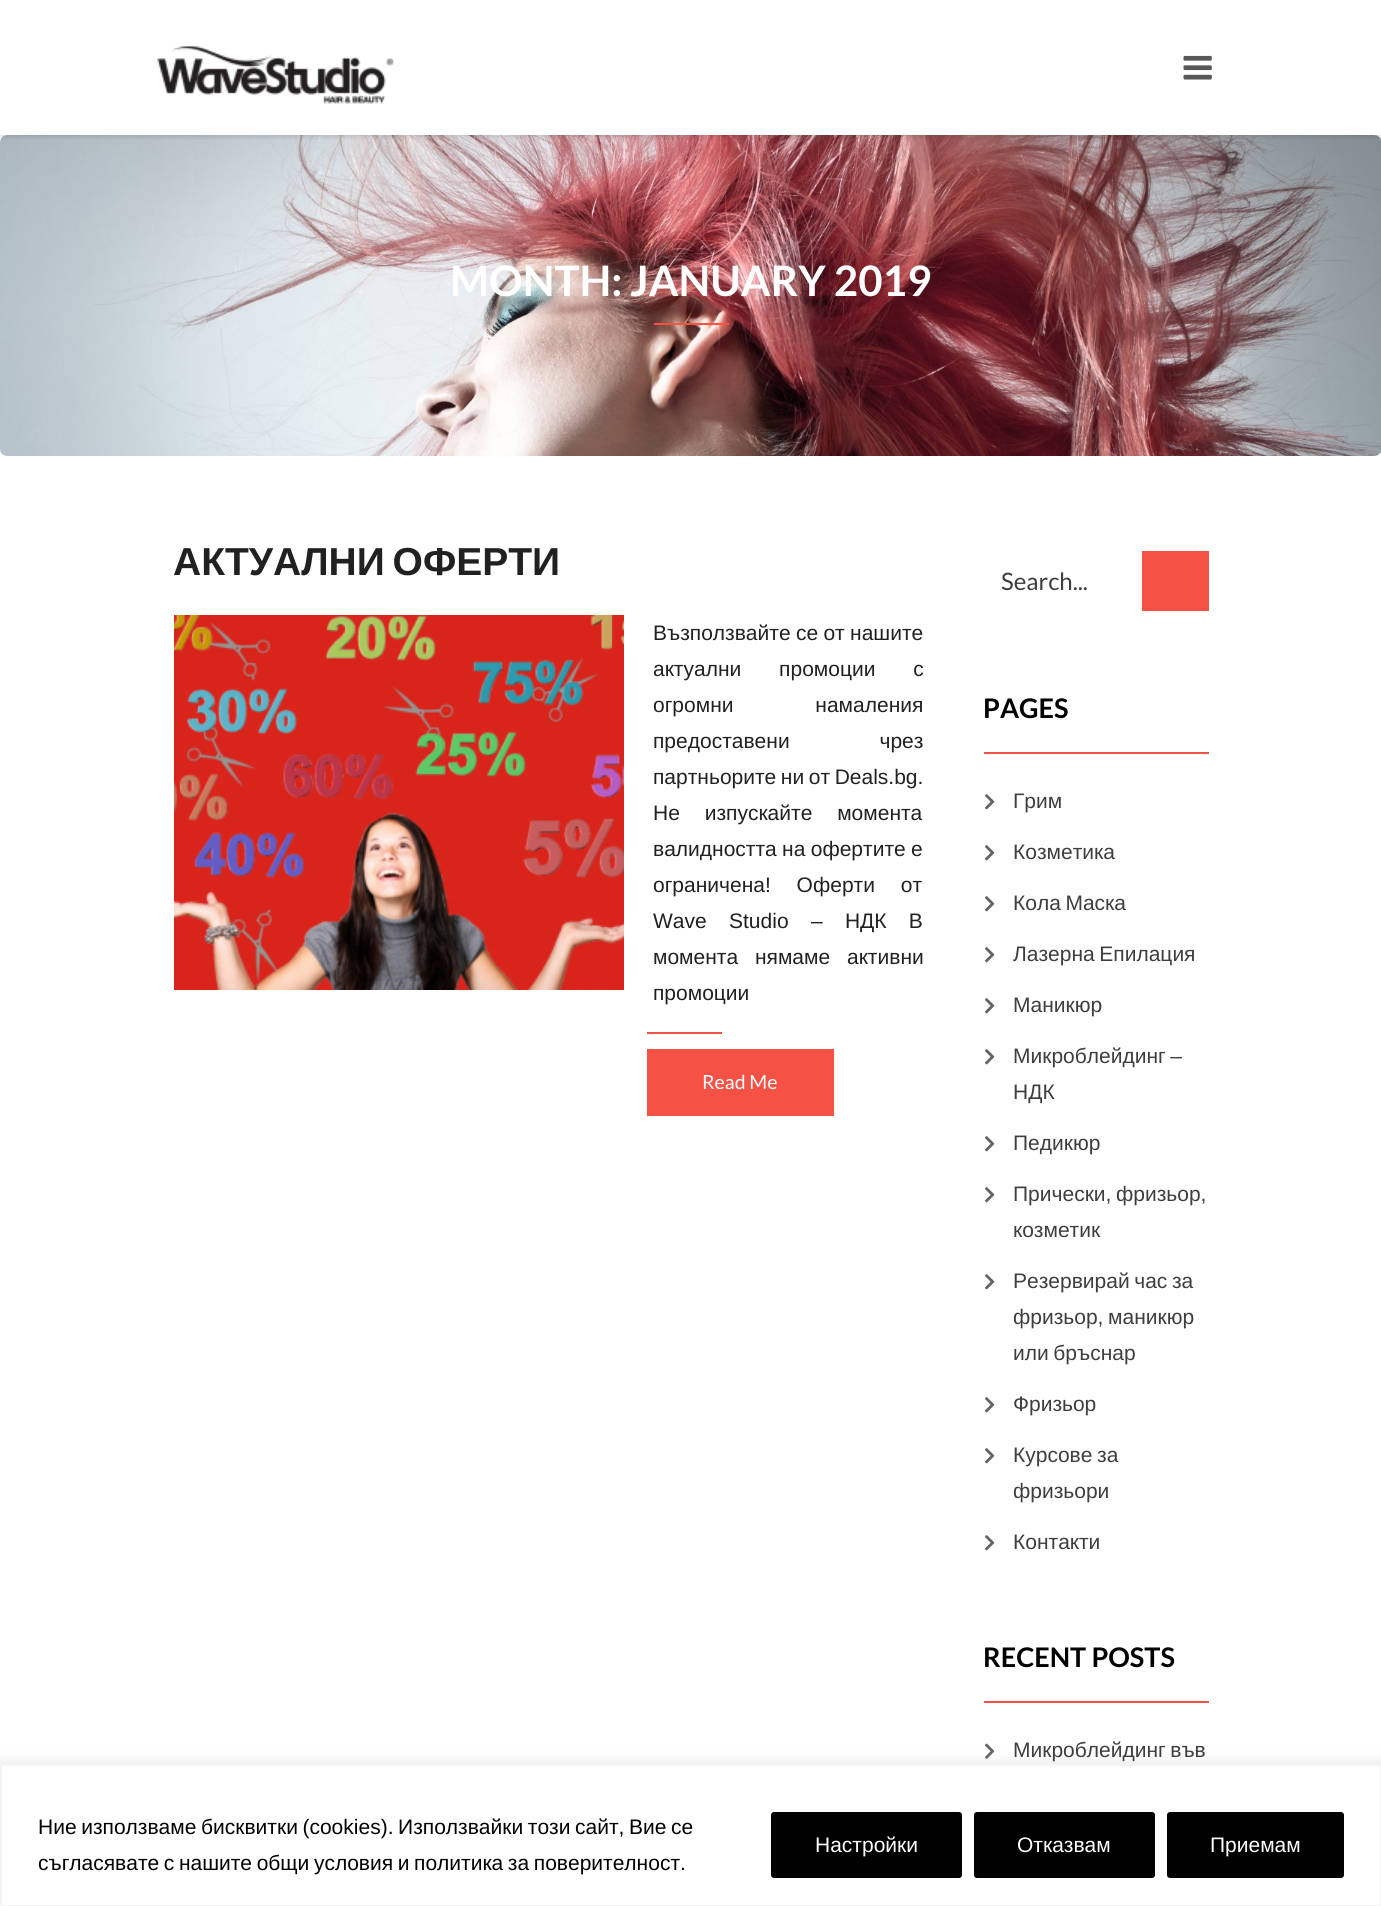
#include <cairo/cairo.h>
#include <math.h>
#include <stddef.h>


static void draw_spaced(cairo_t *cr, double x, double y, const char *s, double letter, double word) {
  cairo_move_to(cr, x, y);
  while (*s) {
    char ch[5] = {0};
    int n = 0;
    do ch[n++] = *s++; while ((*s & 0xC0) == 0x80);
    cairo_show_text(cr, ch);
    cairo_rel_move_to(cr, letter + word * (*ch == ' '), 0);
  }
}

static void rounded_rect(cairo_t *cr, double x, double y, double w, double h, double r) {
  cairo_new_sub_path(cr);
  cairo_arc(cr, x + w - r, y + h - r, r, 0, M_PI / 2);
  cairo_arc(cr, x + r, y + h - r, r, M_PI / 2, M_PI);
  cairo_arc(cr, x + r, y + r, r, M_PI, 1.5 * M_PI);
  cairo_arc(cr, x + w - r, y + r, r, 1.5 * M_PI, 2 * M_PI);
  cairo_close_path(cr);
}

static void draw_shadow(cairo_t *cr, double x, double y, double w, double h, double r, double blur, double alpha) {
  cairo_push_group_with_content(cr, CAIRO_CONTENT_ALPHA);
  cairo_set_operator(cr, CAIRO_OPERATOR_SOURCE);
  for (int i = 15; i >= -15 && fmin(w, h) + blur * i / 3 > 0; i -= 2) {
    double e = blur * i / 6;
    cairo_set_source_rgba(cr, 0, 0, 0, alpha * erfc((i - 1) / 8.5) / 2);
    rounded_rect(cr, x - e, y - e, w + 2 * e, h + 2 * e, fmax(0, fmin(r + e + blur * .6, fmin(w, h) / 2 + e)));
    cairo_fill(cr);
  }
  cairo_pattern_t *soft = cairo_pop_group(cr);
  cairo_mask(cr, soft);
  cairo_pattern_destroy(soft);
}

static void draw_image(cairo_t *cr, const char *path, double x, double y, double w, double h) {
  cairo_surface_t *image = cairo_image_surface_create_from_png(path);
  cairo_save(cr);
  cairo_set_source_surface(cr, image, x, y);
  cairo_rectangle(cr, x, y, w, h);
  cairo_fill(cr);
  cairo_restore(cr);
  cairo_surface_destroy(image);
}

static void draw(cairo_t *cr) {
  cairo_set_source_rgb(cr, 1, 1, 1);
  cairo_paint(cr);
  draw_image(cr, "images/3.png", 0, 135, 1381, 321);
  cairo_save(cr);
  cairo_rectangle(cr, 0, 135, 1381, 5);
  cairo_clip(cr);
  cairo_set_source_rgb(cr, 0, 0, 0);
  draw_shadow(cr, 0, 0, 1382, 135, 0, 4, 0.2);
  cairo_restore(cr);
  draw_image(cr, "images/1.png", 157, 45, 237, 59);
  draw_image(cr, "images/2.png", 1183, 55, 29, 25);
  cairo_set_source_rgb(cr, 245 / 255.0, 81 / 255.0, 69 / 255.0);
  cairo_rectangle(cr, 654, 323, 75, 2);
  cairo_fill(cr);
  draw_image(cr, "images/4.png", 174, 615, 450, 375);
  cairo_rectangle(cr, 647, 1032, 75, 2);
  cairo_fill(cr);
  cairo_rectangle(cr, 647, 1049, 187, 67);
  cairo_fill(cr);
  cairo_rectangle(cr, 1142, 551, 67, 60);
  cairo_fill(cr);
  cairo_rectangle(cr, 984, 752, 225, 2);
  cairo_fill(cr);
  draw_image(cr, "images/5.png", 985, 794, 10, 16);
  draw_image(cr, "images/5.png", 985, 845, 10, 16);
  draw_image(cr, "images/5.png", 985, 896, 10, 16);
  draw_image(cr, "images/5.png", 985, 947, 10, 16);
  draw_image(cr, "images/5.png", 985, 998, 10, 16);
  draw_image(cr, "images/5.png", 985, 1049, 10, 16);
  draw_image(cr, "images/5.png", 985, 1136, 10, 16);
  draw_image(cr, "images/5.png", 985, 1187, 10, 16);
  draw_image(cr, "images/5.png", 985, 1274, 10, 16);
  draw_image(cr, "images/5.png", 985, 1397, 10, 16);
  draw_image(cr, "images/5.png", 985, 1448, 10, 16);
  draw_image(cr, "images/5.png", 985, 1535, 10, 16);
  cairo_rectangle(cr, 984, 1701, 225, 2);
  cairo_fill(cr);
  draw_image(cr, "images/6.png", 985, 1743, 10, 16);
  cairo_set_source_rgb(cr, 172 / 255.0, 171 / 255.0, 171 / 255.0);
  draw_shadow(cr, 0, 1763, 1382, 142, 0, 7.5, 0.3);
  cairo_set_source_rgb(cr, 1, 1, 1);
  cairo_rectangle(cr, 1, 1765, 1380, 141);
  cairo_fill_preserve(cr);
  cairo_set_source_rgb(cr, 244 / 255.0, 244 / 255.0, 244 / 255.0);
  cairo_stroke(cr);
  cairo_set_source_rgb(cr, 0, 0, 0);
  rounded_rect(cr, 772.5, 1813.5, 188, 63, 1.5);
  cairo_fill_preserve(cr);
  cairo_set_line_width(cr, 3);
  cairo_stroke(cr);
  rounded_rect(cr, 975.5, 1813.5, 178, 63, 1.5);
  cairo_fill_preserve(cr);
  cairo_stroke(cr);
  rounded_rect(cr, 1168.5, 1813.5, 174, 63, 1.5);
  cairo_fill_preserve(cr);
  cairo_stroke(cr);
  cairo_select_font_face(cr, "Lato", CAIRO_FONT_SLANT_NORMAL, CAIRO_FONT_WEIGHT_BOLD);
  cairo_set_font_size(cr, 42);
  cairo_set_source_rgb(cr, 1, 1, 1);
  cairo_move_to(cr, 450, 296);
  cairo_show_text(cr, "MONTH: JANUARY 2019");
  cairo_select_font_face(cr, "Liberation Sans", CAIRO_FONT_SLANT_NORMAL, CAIRO_FONT_WEIGHT_BOLD);
  cairo_set_font_size(cr, 39);
  cairo_set_source_rgb(cr, 33 / 255.0, 33 / 255.0, 33 / 255.0);
  draw_spaced(cr, 173, 575, "АКТУАЛНИ ОФЕРТИ", 0, -3);
  cairo_select_font_face(cr, "Liberation Sans", CAIRO_FONT_SLANT_NORMAL, CAIRO_FONT_WEIGHT_NORMAL);
  cairo_set_font_size(cr, 21);
  draw_spaced(cr, 653, 640, "Възползвайте се от нашите", 0, -0.5);
  draw_spaced(cr, 653, 676, "актуални промоции с", 0, 32);
  draw_spaced(cr, 653, 712, "огромни намаления", 0, 76);
  draw_spaced(cr, 653, 748, "предоставени чрез", 0, 84);
  draw_spaced(cr, 653, 784, "партньорите ни от Deals.bg.", 0, -1.25);
  draw_spaced(cr, 653, 820, "Не изпускайте момента", 0, 19);
  draw_spaced(cr, 653, 856, "валидността на офертите е", 0, -0.5);
  draw_spaced(cr, 653, 892, "ограничена! Оферти от", 0, 20);
  draw_spaced(cr, 653, 928, "Wave Studio – НДК В", 0, 16.5);
  draw_spaced(cr, 653, 964, "момента нямаме активни", 0, 11);
  cairo_move_to(cr, 653, 1000);
  cairo_show_text(cr, "промоции");
  cairo_select_font_face(cr, "Lato", CAIRO_FONT_SLANT_NORMAL, CAIRO_FONT_WEIGHT_NORMAL);
  cairo_set_font_size(cr, 19.5);
  cairo_set_source_rgb(cr, 1, 1, 1);
  cairo_move_to(cr, 702, 1089);
  cairo_show_text(cr, "Read Me");
  cairo_set_font_size(cr, 24);
  cairo_set_source_rgb(cr, 62 / 255.0, 62 / 255.0, 62 / 255.0);
  cairo_move_to(cr, 1001, 590);
  cairo_show_text(cr, "Search...");
  cairo_select_font_face(cr, "Lato", CAIRO_FONT_SLANT_NORMAL, CAIRO_FONT_WEIGHT_BOLD);
  cairo_set_font_size(cr, 27);
  cairo_set_source_rgb(cr, 1 / 255.0, 1 / 255.0, 1 / 255.0);
  cairo_move_to(cr, 983, 718);
  cairo_show_text(cr, "PAGES");
  cairo_select_font_face(cr, "Liberation Sans", CAIRO_FONT_SLANT_NORMAL, CAIRO_FONT_WEIGHT_NORMAL);
  cairo_set_font_size(cr, 21);
  cairo_set_source_rgb(cr, 62 / 255.0, 62 / 255.0, 62 / 255.0);
  cairo_move_to(cr, 1013, 808);
  cairo_show_text(cr, "Грим");
  cairo_move_to(cr, 1013, 859);
  cairo_show_text(cr, "Козметика");
  draw_spaced(cr, 1013, 910, "Кола Маска", 0, -1.25);
  draw_spaced(cr, 1013, 961, "Лазерна Епилация", 0, -1.25);
  cairo_move_to(cr, 1013, 1012);
  cairo_show_text(cr, "Маникюр");
  draw_spaced(cr, 1013, 1063, "Микроблейдинг –", 0, -1.25);
  cairo_move_to(cr, 1013, 1099);
  cairo_show_text(cr, "НДК");
  cairo_move_to(cr, 1013, 1150);
  cairo_show_text(cr, "Педикюр");
  draw_spaced(cr, 1013, 1201, "Прически, фризьор,", 0, -1.25);
  cairo_move_to(cr, 1013, 1237);
  cairo_show_text(cr, "козметик");
  draw_spaced(cr, 1013, 1288, "Резервирай час за", 0, -1.25);
  draw_spaced(cr, 1013, 1324, "фризьор, маникюр", 0, -1.25);
  draw_spaced(cr, 1013, 1360, "или бръснар", 0, -1.25);
  cairo_move_to(cr, 1013, 1411);
  cairo_show_text(cr, "Фризьор");
  draw_spaced(cr, 1013, 1462, "Курсове за", 0, -1.25);
  cairo_move_to(cr, 1013, 1498);
  cairo_show_text(cr, "фризьори");
  cairo_move_to(cr, 1013, 1549);
  cairo_show_text(cr, "Контакти");
  cairo_select_font_face(cr, "Lato", CAIRO_FONT_SLANT_NORMAL, CAIRO_FONT_WEIGHT_BOLD);
  cairo_set_font_size(cr, 27);
  cairo_set_source_rgb(cr, 1 / 255.0, 1 / 255.0, 1 / 255.0);
  cairo_move_to(cr, 983, 1667);
  cairo_show_text(cr, "RECENT POSTS");
  cairo_select_font_face(cr, "Liberation Sans", CAIRO_FONT_SLANT_NORMAL, CAIRO_FONT_WEIGHT_NORMAL);
  cairo_set_font_size(cr, 21);
  cairo_set_source_rgb(cr, 62 / 255.0, 62 / 255.0, 62 / 255.0);
  draw_spaced(cr, 1013, 1757, "Микроблейдинг във", 0, -1.25);
  cairo_set_source_rgb(cr, 1 / 255.0, 1 / 255.0, 1 / 255.0);
  draw_spaced(cr, 38, 1834, "Ние използваме бисквитки (cookies). Използвайки този сайт, Вие се", 0, -1.25);
  draw_spaced(cr, 38, 1870, "съгласявате с нашите общи условия и политика за поверителност.", 0, -1.25);
  cairo_set_source_rgb(cr, 1, 1, 1);
  cairo_move_to(cr, 815, 1852);
  cairo_show_text(cr, "Настройки");
  cairo_move_to(cr, 1017, 1852);
  cairo_show_text(cr, "Отказвам");
  cairo_move_to(cr, 1210, 1852);
  cairo_show_text(cr, "Приемам");
}

int main(void) {
  cairo_surface_t *surface = cairo_image_surface_create(CAIRO_FORMAT_RGB24, 1381, 1906);
  cairo_t *cr = cairo_create(surface);
  cairo_font_options_t *options = cairo_font_options_create();
  cairo_font_options_set_hint_metrics(options, CAIRO_HINT_METRICS_OFF);
  cairo_font_options_set_hint_style(options, CAIRO_HINT_STYLE_NONE);
  cairo_set_font_options(cr, options);
  cairo_set_miter_limit(cr, 4);
  draw(cr);
  cairo_surface_write_to_png(surface, "out.png");
  cairo_font_options_destroy(options);
  cairo_destroy(cr);
  cairo_surface_destroy(surface);
  return 0;
}
